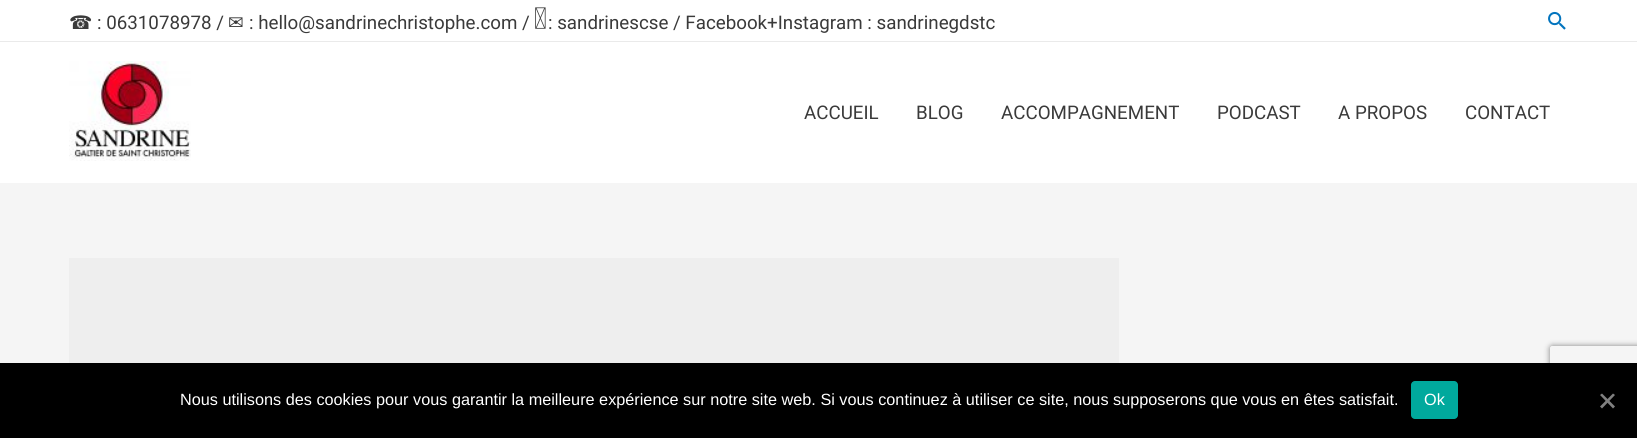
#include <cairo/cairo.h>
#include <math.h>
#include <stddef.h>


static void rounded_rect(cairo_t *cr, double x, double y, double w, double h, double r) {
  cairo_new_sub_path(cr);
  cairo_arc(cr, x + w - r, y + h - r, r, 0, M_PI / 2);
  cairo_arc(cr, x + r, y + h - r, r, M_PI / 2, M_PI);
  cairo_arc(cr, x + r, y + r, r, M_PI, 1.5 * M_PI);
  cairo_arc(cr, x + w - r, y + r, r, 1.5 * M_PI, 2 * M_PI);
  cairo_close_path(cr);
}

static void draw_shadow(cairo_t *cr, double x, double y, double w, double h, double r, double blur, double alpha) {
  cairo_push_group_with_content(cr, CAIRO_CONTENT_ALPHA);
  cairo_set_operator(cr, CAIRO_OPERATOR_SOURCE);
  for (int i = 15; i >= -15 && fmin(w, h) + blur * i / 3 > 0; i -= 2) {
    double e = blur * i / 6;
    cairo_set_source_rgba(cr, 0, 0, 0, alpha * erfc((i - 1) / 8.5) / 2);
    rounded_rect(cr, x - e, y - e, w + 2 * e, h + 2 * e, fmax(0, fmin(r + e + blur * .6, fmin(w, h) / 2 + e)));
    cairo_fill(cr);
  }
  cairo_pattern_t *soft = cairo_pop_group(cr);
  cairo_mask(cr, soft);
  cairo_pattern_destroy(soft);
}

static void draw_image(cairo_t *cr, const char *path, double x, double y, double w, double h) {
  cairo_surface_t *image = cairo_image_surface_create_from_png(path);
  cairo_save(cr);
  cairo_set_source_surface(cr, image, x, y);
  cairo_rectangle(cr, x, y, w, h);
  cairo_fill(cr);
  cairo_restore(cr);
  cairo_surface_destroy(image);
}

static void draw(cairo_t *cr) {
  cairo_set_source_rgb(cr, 245 / 255.0, 245 / 255.0, 245 / 255.0);
  cairo_paint(cr);
  cairo_set_source_rgb(cr, 1, 1, 1);
  cairo_rectangle(cr, 0, 0, 1637, 183);
  cairo_fill(cr);
  cairo_set_source_rgb(cr, 234 / 255.0, 234 / 255.0, 234 / 255.0);
  cairo_rectangle(cr, 0, 41, 1637, 1);
  cairo_fill(cr);
  draw_image(cr, "images/1.png", 535, 7, 11, 22);
  draw_image(cr, "images/2.png", 1548, 11, 18, 19);
  draw_image(cr, "images/3.png", 69, 61, 122, 100);
  cairo_set_source_rgb(cr, 238 / 255.0, 238 / 255.0, 238 / 255.0);
  cairo_rectangle(cr, 69, 258, 1050, 105);
  cairo_fill(cr);
  cairo_save(cr);
  cairo_set_fill_rule(cr, CAIRO_FILL_RULE_EVEN_ODD);
  cairo_new_path(cr);
  cairo_move_to(cr, 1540, 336);
  cairo_line_to(cr, 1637, 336);
  cairo_line_to(cr, 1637, 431);
  cairo_line_to(cr, 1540, 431);
  cairo_close_path(cr);
  cairo_move_to(cr, 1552.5, 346);
  cairo_line_to(cr, 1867.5, 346);
  cairo_curve_to(cr, 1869, 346, 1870, 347, 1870, 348.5);
  cairo_line_to(cr, 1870, 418.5);
  cairo_curve_to(cr, 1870, 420, 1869, 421, 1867.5, 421);
  cairo_line_to(cr, 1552.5, 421);
  cairo_curve_to(cr, 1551, 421, 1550, 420, 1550, 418.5);
  cairo_line_to(cr, 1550, 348.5);
  cairo_curve_to(cr, 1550, 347, 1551, 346, 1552.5, 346);
  cairo_close_path(cr);
  cairo_clip(cr);
  cairo_set_source_rgb(cr, 128 / 255.0, 128 / 255.0, 128 / 255.0);
  draw_shadow(cr, 1550, 346, 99, 75, 2.5, 3, 1);
  cairo_restore(cr);
  cairo_set_source_rgb(cr, 0, 0, 0);
  cairo_rectangle(cr, 0, 363, 1637, 75);
  cairo_fill(cr);
  cairo_set_source_rgb(cr, 0, 169 / 255.0, 157 / 255.0);
  rounded_rect(cr, 1411, 381, 47, 38, 4);
  cairo_fill(cr);
  cairo_set_source_rgb(cr, 128 / 255.0, 128 / 255.0, 128 / 255.0);
  cairo_new_path(cr);
  cairo_move_to(cr, 1613, 393.5);
  cairo_line_to(cr, 1615, 395);
  cairo_line_to(cr, 1602, 408.5);
  cairo_line_to(cr, 1600, 406.5);
  cairo_close_path(cr);
  cairo_fill(cr);
  cairo_new_path(cr);
  cairo_move_to(cr, 1600, 395);
  cairo_line_to(cr, 1602, 393.5);
  cairo_line_to(cr, 1615, 406.5);
  cairo_line_to(cr, 1613, 408.5);
  cairo_close_path(cr);
  cairo_fill(cr);
  cairo_select_font_face(cr, "DejaVu Sans", CAIRO_FONT_SLANT_NORMAL, CAIRO_FONT_WEIGHT_NORMAL);
  cairo_set_font_size(cr, 18.75);
  cairo_set_source_rgb(cr, 58 / 255.0, 58 / 255.0, 58 / 255.0);
  cairo_move_to(cr, 69, 29);
  cairo_show_text(cr, "☎");
  cairo_select_font_face(cr, "Roboto", CAIRO_FONT_SLANT_NORMAL, CAIRO_FONT_WEIGHT_NORMAL);
  cairo_move_to(cr, 97, 29);
  cairo_show_text(cr, ": 0631078978 /");
  cairo_select_font_face(cr, "DejaVu Sans", CAIRO_FONT_SLANT_NORMAL, CAIRO_FONT_WEIGHT_NORMAL);
  cairo_move_to(cr, 228, 29);
  cairo_show_text(cr, "✉");
  cairo_select_font_face(cr, "Roboto", CAIRO_FONT_SLANT_NORMAL, CAIRO_FONT_WEIGHT_NORMAL);
  cairo_move_to(cr, 249, 29);
  cairo_show_text(cr, ": hello@sandrinechristophe.com /");
  cairo_move_to(cr, 548, 29);
  cairo_show_text(cr, ": sandrinescse / Facebook+Instagram : sandrinegdstc");
  cairo_move_to(cr, 804, 119);
  cairo_show_text(cr, "ACCUEIL");
  cairo_move_to(cr, 916, 119);
  cairo_show_text(cr, "BLOG");
  cairo_move_to(cr, 1001, 119);
  cairo_show_text(cr, "ACCOMPAGNEMENT");
  cairo_move_to(cr, 1217, 119);
  cairo_show_text(cr, "PODCAST");
  cairo_move_to(cr, 1338, 119);
  cairo_show_text(cr, "A PROPOS");
  cairo_move_to(cr, 1465, 119);
  cairo_show_text(cr, "CONTACT");
  cairo_select_font_face(cr, "Liberation Sans", CAIRO_FONT_SLANT_NORMAL, CAIRO_FONT_WEIGHT_NORMAL);
  cairo_set_font_size(cr, 16.25);
  cairo_set_source_rgb(cr, 1, 1, 1);
  cairo_move_to(cr, 180, 405);
  cairo_show_text(cr, "Nous utilisons des cookies pour vous garantir la meilleure expérience sur notre site web. Si vous continuez à utiliser ce site, nous supposerons que vous en êtes satisfait.");
  cairo_move_to(cr, 1424, 405);
  cairo_show_text(cr, "Ok");
}

int main(void) {
  cairo_surface_t *surface = cairo_image_surface_create(CAIRO_FORMAT_RGB24, 1637, 438);
  cairo_t *cr = cairo_create(surface);
  cairo_font_options_t *options = cairo_font_options_create();
  cairo_font_options_set_hint_metrics(options, CAIRO_HINT_METRICS_OFF);
  cairo_font_options_set_hint_style(options, CAIRO_HINT_STYLE_NONE);
  cairo_set_font_options(cr, options);
  cairo_set_miter_limit(cr, 4);
  draw(cr);
  cairo_surface_write_to_png(surface, "out.png");
  cairo_font_options_destroy(options);
  cairo_destroy(cr);
  cairo_surface_destroy(surface);
  return 0;
}
